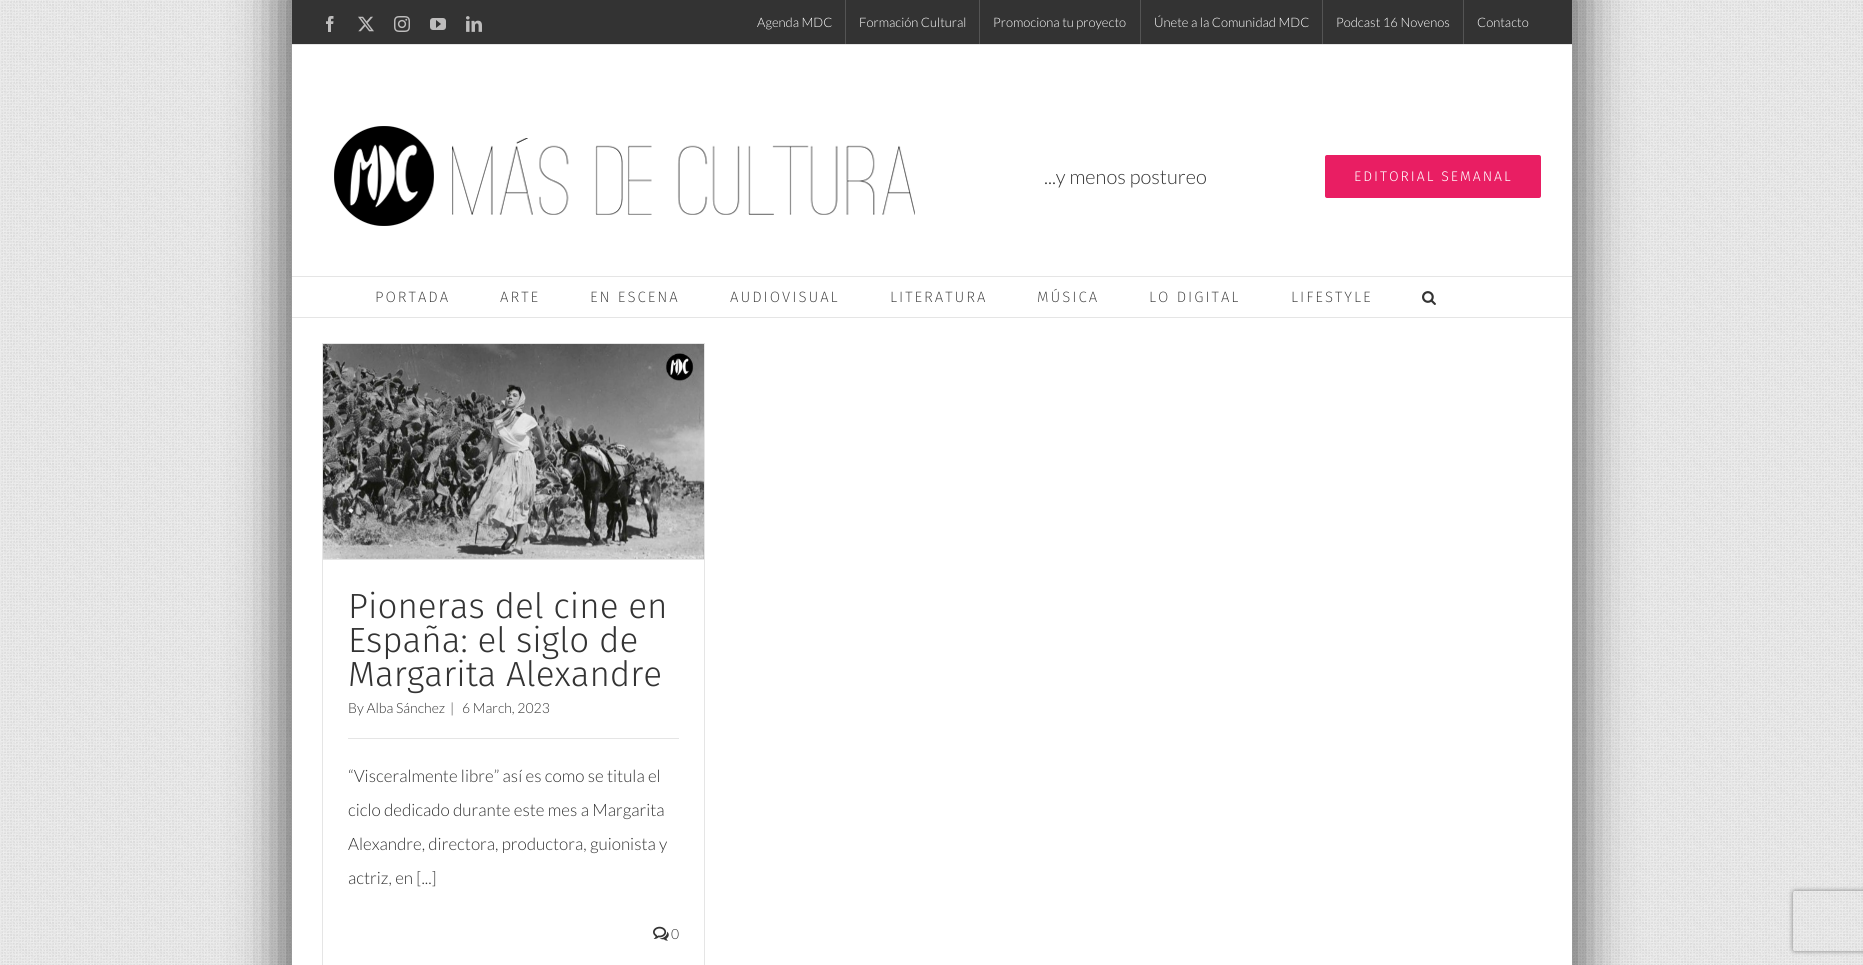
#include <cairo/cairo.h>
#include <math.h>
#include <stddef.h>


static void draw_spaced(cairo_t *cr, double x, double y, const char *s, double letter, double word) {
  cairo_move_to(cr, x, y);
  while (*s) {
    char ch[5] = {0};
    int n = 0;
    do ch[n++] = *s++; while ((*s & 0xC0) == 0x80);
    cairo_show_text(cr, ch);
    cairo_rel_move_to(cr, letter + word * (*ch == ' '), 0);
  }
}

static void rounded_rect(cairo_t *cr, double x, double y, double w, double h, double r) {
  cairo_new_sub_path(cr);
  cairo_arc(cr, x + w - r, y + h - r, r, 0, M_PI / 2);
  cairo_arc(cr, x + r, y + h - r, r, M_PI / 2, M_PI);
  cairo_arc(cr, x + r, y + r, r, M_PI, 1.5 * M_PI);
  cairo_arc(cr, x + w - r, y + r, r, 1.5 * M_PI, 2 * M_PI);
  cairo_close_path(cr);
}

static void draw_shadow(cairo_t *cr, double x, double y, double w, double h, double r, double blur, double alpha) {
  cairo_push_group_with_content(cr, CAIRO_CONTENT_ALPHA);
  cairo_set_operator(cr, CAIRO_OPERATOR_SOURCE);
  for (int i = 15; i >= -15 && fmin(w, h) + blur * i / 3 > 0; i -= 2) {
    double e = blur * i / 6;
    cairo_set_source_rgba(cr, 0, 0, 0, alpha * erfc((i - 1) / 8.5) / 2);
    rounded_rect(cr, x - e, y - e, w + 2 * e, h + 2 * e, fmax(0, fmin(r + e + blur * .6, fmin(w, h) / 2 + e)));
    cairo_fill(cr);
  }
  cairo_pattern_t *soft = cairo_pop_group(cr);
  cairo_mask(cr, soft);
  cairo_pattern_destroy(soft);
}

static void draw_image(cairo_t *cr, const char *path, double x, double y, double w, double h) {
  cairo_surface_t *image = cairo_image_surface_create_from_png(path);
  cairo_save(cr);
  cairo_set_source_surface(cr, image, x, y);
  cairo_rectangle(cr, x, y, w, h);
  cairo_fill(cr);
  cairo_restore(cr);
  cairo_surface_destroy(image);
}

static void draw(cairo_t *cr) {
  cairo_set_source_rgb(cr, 1, 1, 1);
  cairo_paint(cr);
  draw_image(cr, "images/1.png", 0, 0, 1863, 965);
  cairo_set_source_rgb(cr, 0, 0, 0);
  draw_shadow(cr, 282, -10, 1300, 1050, 0, 25, 0.55);
  cairo_set_source_rgb(cr, 51 / 255.0, 51 / 255.0, 51 / 255.0);
  cairo_rectangle(cr, 292, 0, 1280, 44);
  cairo_fill(cr);
  cairo_set_source_rgb(cr, 229 / 255.0, 229 / 255.0, 229 / 255.0);
  cairo_rectangle(cr, 292, 44, 1280, 1);
  cairo_fill(cr);
  draw_image(cr, "images/2.png", 326, 16, 8, 16);
  draw_image(cr, "images/3.png", 358, 16, 16, 16);
  draw_image(cr, "images/4.png", 394, 16, 16, 16);
  draw_image(cr, "images/5.png", 430, 18, 16, 12);
  draw_image(cr, "images/6.png", 466, 16, 16, 16);
  cairo_set_source_rgb(cr, 84 / 255.0, 84 / 255.0, 84 / 255.0);
  cairo_rectangle(cr, 845, 0, 1, 44);
  cairo_fill(cr);
  cairo_rectangle(cr, 979, 0, 1, 44);
  cairo_fill(cr);
  cairo_rectangle(cr, 1140, 0, 1, 44);
  cairo_fill(cr);
  cairo_rectangle(cr, 1322, 0, 1, 44);
  cairo_fill(cr);
  cairo_rectangle(cr, 1463, 0, 1, 44);
  cairo_fill(cr);
  cairo_set_source_rgb(cr, 1, 1, 1);
  cairo_rectangle(cr, 292, 45, 1280, 231);
  cairo_fill(cr);
  cairo_set_source_rgb(cr, 229 / 255.0, 229 / 255.0, 229 / 255.0);
  cairo_rectangle(cr, 292, 276, 1280, 1);
  cairo_fill(cr);
  draw_image(cr, "images/7.png", 334, 126, 581, 100);
  cairo_set_source_rgb(cr, 233 / 255.0, 30 / 255.0, 99 / 255.0);
  rounded_rect(cr, 1325, 155, 216, 43, 2);
  cairo_fill(cr);
  cairo_set_source_rgb(cr, 1, 1, 1);
  cairo_rectangle(cr, 292, 277, 1280, 40);
  cairo_fill(cr);
  cairo_set_source_rgb(cr, 229 / 255.0, 229 / 255.0, 229 / 255.0);
  cairo_rectangle(cr, 292, 317, 1280, 1);
  cairo_fill(cr);
  draw_image(cr, "images/8.png", 1422, 291, 14, 14);
  cairo_set_source_rgb(cr, 1, 1, 1);
  cairo_rectangle(cr, 292, 318, 1280, 647);
  cairo_fill(cr);
  cairo_set_source_rgb(cr, 229 / 255.0, 229 / 255.0, 229 / 255.0);
  cairo_rectangle(cr, 322, 343, 383, 1);
  cairo_fill(cr);
  cairo_rectangle(cr, 704, 343, 1, 622);
  cairo_fill(cr);
  cairo_rectangle(cr, 322, 343, 1, 622);
  cairo_fill(cr);
  cairo_rectangle(cr, 323, 559, 381, 1);
  cairo_fill(cr);
  draw_image(cr, "images/9.png", 323, 344, 381, 215);
  cairo_rectangle(cr, 348, 738, 331, 1);
  cairo_fill(cr);
  draw_image(cr, "images/10.png", 653, 926, 16, 15);
  cairo_save(cr);
  cairo_set_fill_rule(cr, CAIRO_FILL_RULE_EVEN_ODD);
  cairo_new_path(cr);
  cairo_move_to(cr, 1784, 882);
  cairo_line_to(cr, 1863, 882);
  cairo_line_to(cr, 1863, 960);
  cairo_line_to(cr, 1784, 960);
  cairo_close_path(cr);
  cairo_move_to(cr, 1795, 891);
  cairo_line_to(cr, 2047, 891);
  cairo_curve_to(cr, 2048, 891, 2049, 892, 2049, 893);
  cairo_line_to(cr, 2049, 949);
  cairo_curve_to(cr, 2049, 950, 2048, 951, 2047, 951);
  cairo_line_to(cr, 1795, 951);
  cairo_curve_to(cr, 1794, 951, 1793, 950, 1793, 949);
  cairo_line_to(cr, 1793, 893);
  cairo_curve_to(cr, 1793, 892, 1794, 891, 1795, 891);
  cairo_close_path(cr);
  cairo_clip(cr);
  cairo_set_source_rgb(cr, 128 / 255.0, 128 / 255.0, 128 / 255.0);
  draw_shadow(cr, 1793, 891, 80, 60, 2, 2.5, 1);
  cairo_restore(cr);
  cairo_select_font_face(cr, "Lato Light", CAIRO_FONT_SLANT_NORMAL, CAIRO_FONT_WEIGHT_NORMAL);
  cairo_set_font_size(cr, 13);
  cairo_set_source_rgb(cr, 1, 1, 1);
  cairo_move_to(cr, 757, 27);
  cairo_show_text(cr, "Agenda MDC");
  cairo_move_to(cr, 859, 27);
  cairo_show_text(cr, "Formación Cultural");
  cairo_move_to(cr, 993, 27);
  cairo_show_text(cr, "Promociona tu proyecto");
  cairo_move_to(cr, 1154, 27);
  cairo_show_text(cr, "Únete a la Comunidad MDC");
  cairo_move_to(cr, 1336, 27);
  cairo_show_text(cr, "Podcast 16 Novenos");
  cairo_move_to(cr, 1477, 27);
  cairo_show_text(cr, "Contacto");
  cairo_set_font_size(cr, 20);
  cairo_set_source_rgb(cr, 51 / 255.0, 51 / 255.0, 51 / 255.0);
  cairo_move_to(cr, 1044, 184);
  cairo_show_text(cr, "...y menos postureo");
  cairo_select_font_face(cr, "Fira Sans Light", CAIRO_FONT_SLANT_NORMAL, CAIRO_FONT_WEIGHT_NORMAL);
  cairo_set_font_size(cr, 14);
  cairo_set_source_rgb(cr, 1, 1, 1);
  draw_spaced(cr, 1354, 181, "EDITORIAL SEMANAL", 2, 0);
  cairo_select_font_face(cr, "Fira Sans ExtraLight", CAIRO_FONT_SLANT_NORMAL, CAIRO_FONT_WEIGHT_NORMAL);
  cairo_set_font_size(cr, 15);
  cairo_set_source_rgb(cr, 51 / 255.0, 51 / 255.0, 51 / 255.0);
  draw_spaced(cr, 375, 302, "PORTADA", 2, 0);
  draw_spaced(cr, 500, 302, "ARTE", 2, 0);
  draw_spaced(cr, 590, 302, "EN ESCENA", 2, 0);
  draw_spaced(cr, 730, 302, "AUDIOVISUAL", 2, 0);
  draw_spaced(cr, 890, 302, "LITERATURA", 2, 0);
  draw_spaced(cr, 1037, 302, "MÚSICA", 2, 0);
  draw_spaced(cr, 1149, 302, "LO DIGITAL", 2, 0);
  draw_spaced(cr, 1291, 302, "LIFESTYLE", 2, 0);
  cairo_select_font_face(cr, "Fira Sans Light", CAIRO_FONT_SLANT_NORMAL, CAIRO_FONT_WEIGHT_NORMAL);
  cairo_set_font_size(cr, 35);
  cairo_move_to(cr, 348, 618);
  cairo_show_text(cr, "Pioneras del cine en");
  cairo_move_to(cr, 348, 652);
  cairo_show_text(cr, "España: el siglo de");
  cairo_move_to(cr, 348, 686);
  cairo_show_text(cr, "Margarita Alexandre");
  cairo_select_font_face(cr, "Lato Light", CAIRO_FONT_SLANT_NORMAL, CAIRO_FONT_WEIGHT_NORMAL);
  cairo_set_font_size(cr, 14);
  cairo_move_to(cr, 348, 713);
  cairo_show_text(cr, "By Alba Sánchez");
  cairo_move_to(cr, 450, 713);
  cairo_show_text(cr, "|");
  cairo_move_to(cr, 462, 713);
  cairo_show_text(cr, "6 March, 2023");
  cairo_set_font_size(cr, 17);
  cairo_move_to(cr, 348, 782);
  cairo_show_text(cr, "“Visceralmente libre” así es como se titula el");
  cairo_move_to(cr, 348, 816);
  cairo_show_text(cr, "ciclo dedicado durante este mes a Margarita");
  cairo_move_to(cr, 348, 850);
  cairo_show_text(cr, "Alexandre, directora, productora, guionista y");
  cairo_move_to(cr, 348, 884);
  cairo_show_text(cr, "actriz, en [...]");
  cairo_set_font_size(cr, 14);
  cairo_move_to(cr, 671, 939);
  cairo_show_text(cr, "0");
}

int main(void) {
  cairo_surface_t *surface = cairo_image_surface_create(CAIRO_FORMAT_RGB24, 1863, 965);
  cairo_t *cr = cairo_create(surface);
  cairo_font_options_t *options = cairo_font_options_create();
  cairo_font_options_set_hint_metrics(options, CAIRO_HINT_METRICS_OFF);
  cairo_font_options_set_hint_style(options, CAIRO_HINT_STYLE_NONE);
  cairo_set_font_options(cr, options);
  cairo_set_miter_limit(cr, 4);
  draw(cr);
  cairo_surface_write_to_png(surface, "out.png");
  cairo_font_options_destroy(options);
  cairo_destroy(cr);
  cairo_surface_destroy(surface);
  return 0;
}
